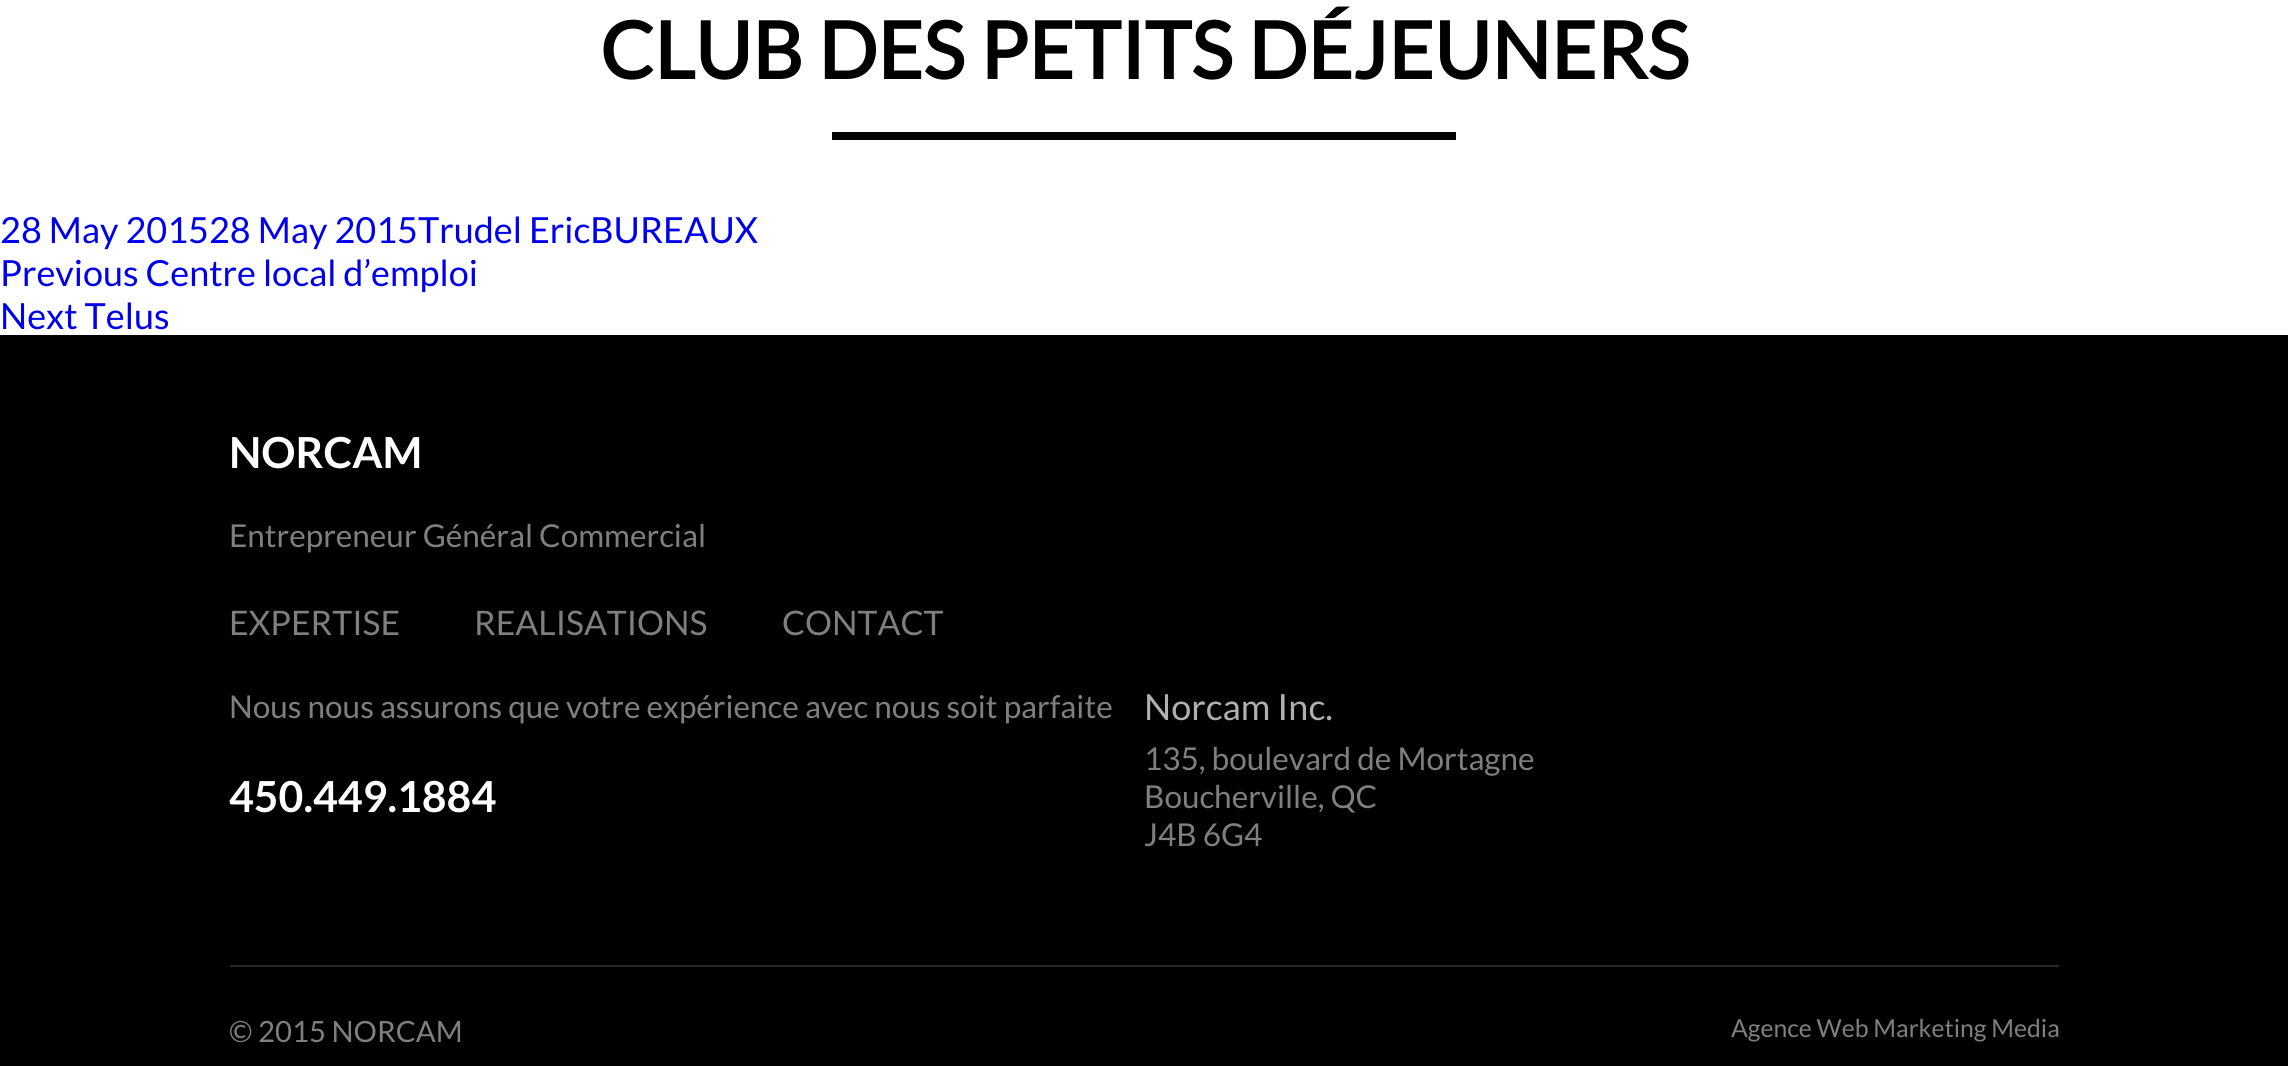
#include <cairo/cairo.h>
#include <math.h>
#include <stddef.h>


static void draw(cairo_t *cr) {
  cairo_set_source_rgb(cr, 1, 1, 1);
  cairo_paint(cr);
  cairo_set_source_rgb(cr, 0, 0, 0);
  cairo_rectangle(cr, 832, 132, 624, 8);
  cairo_fill(cr);
  cairo_rectangle(cr, 0, 335, 2288, 731);
  cairo_fill(cr);
  cairo_set_source_rgb(cr, 38 / 255.0, 38 / 255.0, 38 / 255.0);
  cairo_rectangle(cr, 230, 965, 1829, 2);
  cairo_fill(cr);
  cairo_select_font_face(cr, "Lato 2", CAIRO_FONT_SLANT_NORMAL, CAIRO_FONT_WEIGHT_BOLD);
  cairo_set_font_size(cr, 78.75);
  cairo_set_source_rgb(cr, 0, 0, 0);
  cairo_move_to(cr, 600, 79);
  cairo_show_text(cr, "CLUB DES PETITS DÉJEUNERS");
  cairo_select_font_face(cr, "Lato", CAIRO_FONT_SLANT_NORMAL, CAIRO_FONT_WEIGHT_NORMAL);
  cairo_set_font_size(cr, 36);
  cairo_set_source_rgb(cr, 0, 0, 238 / 255.0);
  cairo_move_to(cr, 0, 243);
  cairo_show_text(cr, "28 May 201528 May 2015Trudel EricBUREAUX");
  cairo_move_to(cr, 0, 286);
  cairo_show_text(cr, "Previous Centre local d’emploi");
  cairo_move_to(cr, 0, 329);
  cairo_show_text(cr, "Next Telus");
  cairo_select_font_face(cr, "Lato", CAIRO_FONT_SLANT_NORMAL, CAIRO_FONT_WEIGHT_BOLD);
  cairo_set_font_size(cr, 42.75);
  cairo_set_source_rgb(cr, 1, 1, 1);
  cairo_move_to(cr, 229, 468);
  cairo_show_text(cr, "NORCAM");
  cairo_select_font_face(cr, "Lato", CAIRO_FONT_SLANT_NORMAL, CAIRO_FONT_WEIGHT_NORMAL);
  cairo_set_font_size(cr, 31.5);
  cairo_set_source_rgb(cr, 127 / 255.0, 127 / 255.0, 127 / 255.0);
  cairo_move_to(cr, 229, 547);
  cairo_show_text(cr, "Entrepreneur Général Commercial");
  cairo_set_font_size(cr, 33.75);
  cairo_move_to(cr, 229, 635);
  cairo_show_text(cr, "EXPERTISE");
  cairo_move_to(cr, 474, 635);
  cairo_show_text(cr, "REALISATIONS");
  cairo_move_to(cr, 782, 635);
  cairo_show_text(cr, "CONTACT");
  cairo_set_font_size(cr, 31.5);
  cairo_move_to(cr, 229, 718);
  cairo_show_text(cr, "Nous nous assurons que votre expérience avec nous soit parfaite");
  cairo_select_font_face(cr, "Lato", CAIRO_FONT_SLANT_NORMAL, CAIRO_FONT_WEIGHT_BOLD);
  cairo_set_font_size(cr, 42.75);
  cairo_set_source_rgb(cr, 1, 1, 1);
  cairo_move_to(cr, 229, 812);
  cairo_show_text(cr, "450.449.1884");
  cairo_select_font_face(cr, "Lato", CAIRO_FONT_SLANT_NORMAL, CAIRO_FONT_WEIGHT_NORMAL);
  cairo_set_font_size(cr, 36);
  cairo_set_source_rgb(cr, 176 / 255.0, 176 / 255.0, 176 / 255.0);
  cairo_move_to(cr, 1144, 720);
  cairo_show_text(cr, "Norcam Inc.");
  cairo_set_font_size(cr, 31.5);
  cairo_set_source_rgb(cr, 127 / 255.0, 127 / 255.0, 127 / 255.0);
  cairo_move_to(cr, 1144, 770);
  cairo_show_text(cr, "135, boulevard de Mortagne");
  cairo_move_to(cr, 1144, 808);
  cairo_show_text(cr, "Boucherville, QC");
  cairo_move_to(cr, 1144, 846);
  cairo_show_text(cr, "J4B 6G4");
  cairo_set_font_size(cr, 29.25);
  cairo_move_to(cr, 229, 1042);
  cairo_show_text(cr, "© 2015 NORCAM");
  cairo_set_font_size(cr, 24.75);
  cairo_move_to(cr, 1731, 1037);
  cairo_show_text(cr, "Agence Web Marketing Media");
}

int main(void) {
  cairo_surface_t *surface = cairo_image_surface_create(CAIRO_FORMAT_RGB24, 2288, 1066);
  cairo_t *cr = cairo_create(surface);
  cairo_font_options_t *options = cairo_font_options_create();
  cairo_font_options_set_hint_metrics(options, CAIRO_HINT_METRICS_OFF);
  cairo_font_options_set_hint_style(options, CAIRO_HINT_STYLE_NONE);
  cairo_set_font_options(cr, options);
  cairo_set_miter_limit(cr, 4);
  draw(cr);
  cairo_surface_write_to_png(surface, "out.png");
  cairo_font_options_destroy(options);
  cairo_destroy(cr);
  cairo_surface_destroy(surface);
  return 0;
}
